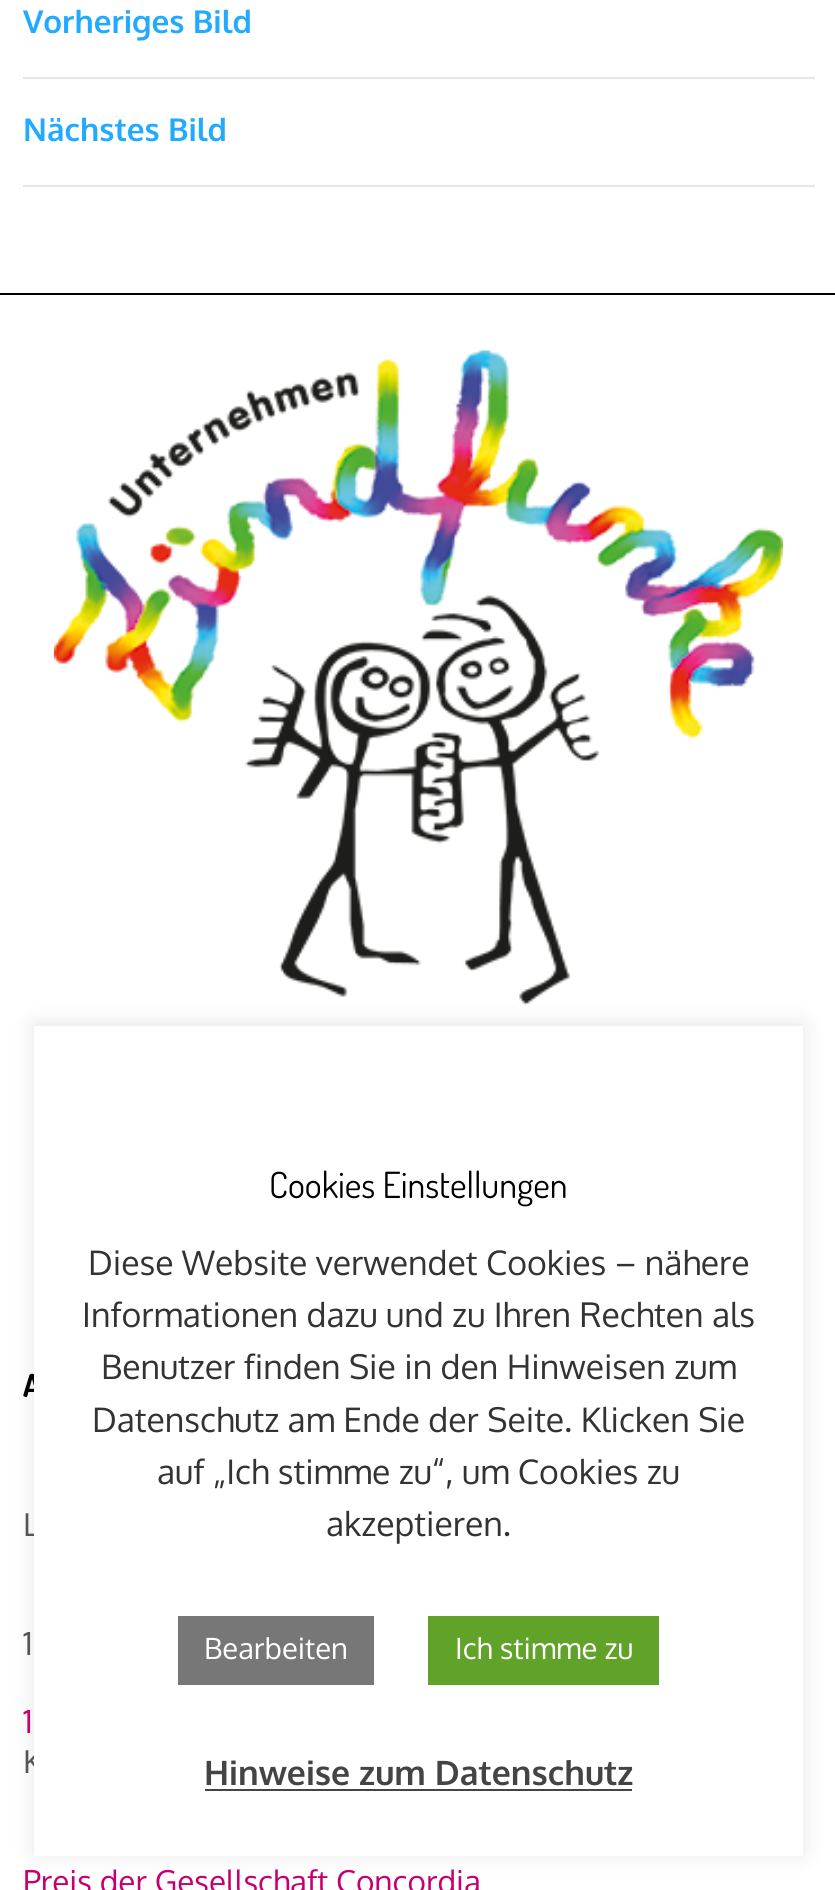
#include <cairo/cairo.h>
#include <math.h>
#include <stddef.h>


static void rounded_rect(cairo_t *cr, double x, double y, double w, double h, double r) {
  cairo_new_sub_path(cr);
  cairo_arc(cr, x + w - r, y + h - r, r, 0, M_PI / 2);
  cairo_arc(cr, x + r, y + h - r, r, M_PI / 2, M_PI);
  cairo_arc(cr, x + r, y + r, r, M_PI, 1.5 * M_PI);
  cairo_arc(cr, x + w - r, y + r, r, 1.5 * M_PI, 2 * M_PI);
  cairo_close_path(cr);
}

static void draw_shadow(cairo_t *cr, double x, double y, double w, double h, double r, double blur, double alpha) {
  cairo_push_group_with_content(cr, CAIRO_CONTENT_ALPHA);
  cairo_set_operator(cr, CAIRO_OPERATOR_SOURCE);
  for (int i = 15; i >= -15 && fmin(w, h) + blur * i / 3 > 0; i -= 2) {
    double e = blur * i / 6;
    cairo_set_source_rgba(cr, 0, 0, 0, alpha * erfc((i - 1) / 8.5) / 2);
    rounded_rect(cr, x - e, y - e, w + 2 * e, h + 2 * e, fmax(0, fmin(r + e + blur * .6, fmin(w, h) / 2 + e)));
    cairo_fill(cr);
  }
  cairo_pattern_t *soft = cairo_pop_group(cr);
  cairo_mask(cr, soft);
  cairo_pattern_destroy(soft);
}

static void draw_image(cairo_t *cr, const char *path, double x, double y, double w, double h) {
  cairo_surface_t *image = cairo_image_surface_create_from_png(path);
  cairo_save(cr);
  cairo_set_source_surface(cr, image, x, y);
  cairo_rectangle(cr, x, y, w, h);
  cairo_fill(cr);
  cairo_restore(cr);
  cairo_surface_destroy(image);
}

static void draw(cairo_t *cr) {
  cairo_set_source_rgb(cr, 1, 1, 1);
  cairo_paint(cr);
  cairo_set_source_rgb(cr, 230 / 255.0, 230 / 255.0, 230 / 255.0);
  cairo_rectangle(cr, 23, 77, 792, 2);
  cairo_fill(cr);
  cairo_rectangle(cr, 23, 185, 792, 2);
  cairo_fill(cr);
  cairo_set_source_rgb(cr, 0, 0, 0);
  cairo_rectangle(cr, 0, 293, 835, 2);
  cairo_fill(cr);
  draw_image(cr, "images/1.png", 54, 350, 729, 656);
  cairo_set_source_rgb(cr, 172 / 255.0, 171 / 255.0, 171 / 255.0);
  draw_shadow(cr, 34, 1024, 769, 830, 0, 11, 0.3);
  cairo_select_font_face(cr, "Oxygen", CAIRO_FONT_SLANT_NORMAL, CAIRO_FONT_WEIGHT_BOLD);
  cairo_set_font_size(cr, 31.5);
  cairo_set_source_rgb(cr, 34 / 255.0, 170 / 255.0, 1);
  cairo_move_to(cr, 23, 33);
  cairo_show_text(cr, "Vorheriges Bild");
  cairo_move_to(cr, 23, 141);
  cairo_show_text(cr, "Nächstes Bild");
  cairo_select_font_face(cr, "Dosis", CAIRO_FONT_SLANT_NORMAL, CAIRO_FONT_WEIGHT_BOLD);
  cairo_set_source_rgb(cr, 0, 0, 0);
  cairo_move_to(cr, 23, 1397);
  cairo_show_text(cr, "A");
  cairo_select_font_face(cr, "Oxygen", CAIRO_FONT_SLANT_NORMAL, CAIRO_FONT_WEIGHT_NORMAL);
  cairo_set_source_rgb(cr, 85 / 255.0, 85 / 255.0, 85 / 255.0);
  cairo_move_to(cr, 23, 1536);
  cairo_show_text(cr, "L");
  cairo_move_to(cr, 23, 1655);
  cairo_show_text(cr, "1");
  cairo_set_source_rgb(cr, 197 / 255.0, 0, 111 / 255.0);
  cairo_move_to(cr, 23, 1733);
  cairo_show_text(cr, "1");
  cairo_set_source_rgb(cr, 85 / 255.0, 85 / 255.0, 85 / 255.0);
  cairo_move_to(cr, 23, 1773);
  cairo_show_text(cr, "K");
  cairo_set_source_rgb(cr, 197 / 255.0, 0, 111 / 255.0);
  cairo_move_to(cr, 23, 1893);
  cairo_show_text(cr, "Preis der Gesellschaft Concordia");
  cairo_set_source_rgb(cr, 1, 1, 1);
  cairo_rectangle(cr, 34, 1026, 769, 830);
  cairo_fill(cr);
  cairo_select_font_face(cr, "Dosis", CAIRO_FONT_SLANT_NORMAL, CAIRO_FONT_WEIGHT_NORMAL);
  cairo_set_font_size(cr, 36);
  cairo_set_source_rgb(cr, 0, 0, 0);
  cairo_move_to(cr, 269, 1198);
  cairo_show_text(cr, "Cookies Einstellungen");
  cairo_select_font_face(cr, "Oxygen", CAIRO_FONT_SLANT_NORMAL, CAIRO_FONT_WEIGHT_NORMAL);
  cairo_set_font_size(cr, 33.75);
  cairo_set_source_rgb(cr, 51 / 255.0, 51 / 255.0, 51 / 255.0);
  cairo_move_to(cr, 88, 1275);
  cairo_show_text(cr, "Diese Website verwendet Cookies – nähere");
  cairo_move_to(cr, 82, 1327);
  cairo_show_text(cr, "Informationen dazu und zu Ihren Rechten als");
  cairo_move_to(cr, 101, 1379);
  cairo_show_text(cr, "Benutzer finden Sie in den Hinweisen zum");
  cairo_move_to(cr, 92, 1432);
  cairo_show_text(cr, "Datenschutz am Ende der Seite. Klicken Sie");
  cairo_move_to(cr, 157, 1484);
  cairo_show_text(cr, "auf „Ich stimme zu“, um Cookies zu");
  cairo_move_to(cr, 326, 1536);
  cairo_show_text(cr, "akzeptieren.");
  cairo_set_source_rgb(cr, 119 / 255.0, 119 / 255.0, 119 / 255.0);
  cairo_rectangle(cr, 178, 1616, 196, 69);
  cairo_fill(cr);
  cairo_set_font_size(cr, 29.25);
  cairo_set_source_rgb(cr, 1, 1, 1);
  cairo_move_to(cr, 204, 1659);
  cairo_show_text(cr, "Bearbeiten");
  cairo_set_source_rgb(cr, 97 / 255.0, 162 / 255.0, 41 / 255.0);
  cairo_rectangle(cr, 428, 1616, 231, 69);
  cairo_fill(cr);
  cairo_set_source_rgb(cr, 1, 1, 1);
  cairo_move_to(cr, 455, 1659);
  cairo_show_text(cr, "Ich stimme zu");
  cairo_select_font_face(cr, "Oxygen", CAIRO_FONT_SLANT_NORMAL, CAIRO_FONT_WEIGHT_BOLD);
  cairo_set_font_size(cr, 33.75);
  cairo_set_source_rgb(cr, 68 / 255.0, 68 / 255.0, 68 / 255.0);
  cairo_move_to(cr, 204, 1785);
  cairo_show_text(cr, "Hinweise zum Datenschutz");
  cairo_rectangle(cr, 205, 1789, 427, 2);
  cairo_fill(cr);
}

int main(void) {
  cairo_surface_t *surface = cairo_image_surface_create(CAIRO_FORMAT_RGB24, 835, 1890);
  cairo_t *cr = cairo_create(surface);
  cairo_font_options_t *options = cairo_font_options_create();
  cairo_font_options_set_hint_metrics(options, CAIRO_HINT_METRICS_OFF);
  cairo_font_options_set_hint_style(options, CAIRO_HINT_STYLE_NONE);
  cairo_set_font_options(cr, options);
  cairo_set_miter_limit(cr, 4);
  draw(cr);
  cairo_surface_write_to_png(surface, "out.png");
  cairo_font_options_destroy(options);
  cairo_destroy(cr);
  cairo_surface_destroy(surface);
  return 0;
}
